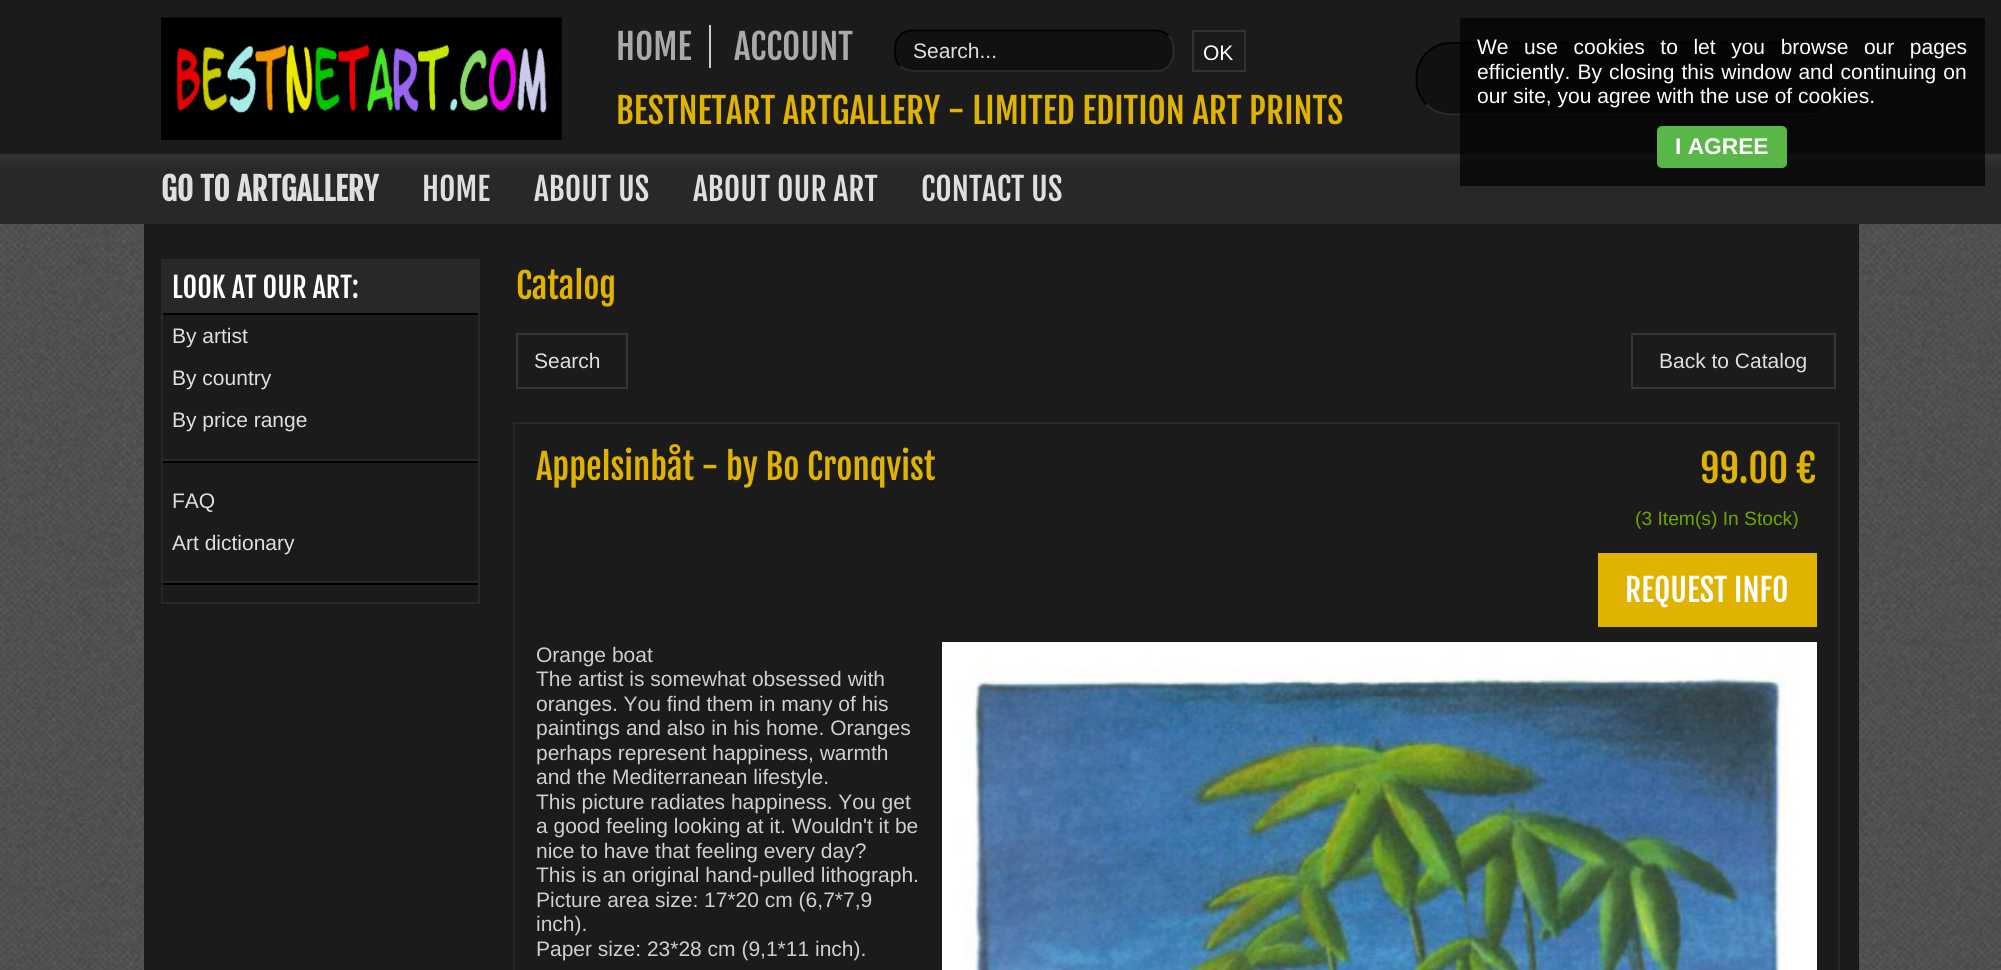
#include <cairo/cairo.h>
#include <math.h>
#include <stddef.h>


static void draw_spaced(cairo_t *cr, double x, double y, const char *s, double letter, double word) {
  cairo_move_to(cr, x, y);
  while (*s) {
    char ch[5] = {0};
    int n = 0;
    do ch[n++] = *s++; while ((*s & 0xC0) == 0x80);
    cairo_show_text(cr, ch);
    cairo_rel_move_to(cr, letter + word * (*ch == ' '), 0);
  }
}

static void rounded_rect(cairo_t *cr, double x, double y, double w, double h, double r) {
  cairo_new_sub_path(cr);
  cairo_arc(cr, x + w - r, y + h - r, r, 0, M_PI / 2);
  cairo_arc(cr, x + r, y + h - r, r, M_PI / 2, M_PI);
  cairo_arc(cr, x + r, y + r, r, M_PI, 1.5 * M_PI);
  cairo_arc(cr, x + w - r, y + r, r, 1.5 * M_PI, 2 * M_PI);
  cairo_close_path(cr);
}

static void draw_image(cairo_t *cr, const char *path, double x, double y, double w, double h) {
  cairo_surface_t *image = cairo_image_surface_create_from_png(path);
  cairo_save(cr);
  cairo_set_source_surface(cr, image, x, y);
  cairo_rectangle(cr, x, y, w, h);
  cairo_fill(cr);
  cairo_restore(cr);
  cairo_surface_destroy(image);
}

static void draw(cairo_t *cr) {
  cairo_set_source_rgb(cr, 1, 1, 1);
  cairo_paint(cr);
  draw_image(cr, "images/1.png", 0, 224, 2001, 746);
  cairo_set_source_rgb(cr, 27 / 255.0, 27 / 255.0, 28 / 255.0);
  cairo_rectangle(cr, 0, 0, 2001, 153);
  cairo_fill(cr);
  draw_image(cr, "images/2.png", 0, 153, 2001, 71);
  draw_image(cr, "images/3.png", 161, 17, 401, 123);
  cairo_set_source_rgb(cr, 204 / 255.0, 204 / 255.0, 204 / 255.0);
  cairo_rectangle(cr, 709, 25, 2, 43);
  cairo_fill(cr);
  cairo_set_source_rgb(cr, 17 / 255.0, 17 / 255.0, 17 / 255.0);
  rounded_rect(cr, 894, 30, 280, 42, 18);
  cairo_fill(cr);
  cairo_new_path(cr);
  cairo_move_to(cr, 1168.5, 35.5);
  cairo_curve_to(cr, 1173.5, 40.5, 1173.5, 46.5, 1173.5, 53);
  cairo_curve_to(cr, 1173.5, 62.5, 1167, 71, 1157, 71);
  cairo_line_to(cr, 912, 71);
  cairo_line_to(cr, 905.5, 69.5);
  cairo_line_to(cr, 900, 66);
  cairo_set_source_rgb(cr, 46 / 255.0, 45 / 255.0, 45 / 255.0);
  cairo_set_line_width(cr, 1.8);
  cairo_stroke(cr);
  cairo_new_path(cr);
  cairo_move_to(cr, 900, 66);
  cairo_curve_to(cr, 895, 61, 895, 55, 895, 48.5);
  cairo_curve_to(cr, 895, 39, 901.5, 30.5, 912, 30.5);
  cairo_line_to(cr, 1157, 30.5);
  cairo_line_to(cr, 1163, 32);
  cairo_line_to(cr, 1168.5, 35.5);
  cairo_set_source_rgb(cr, 0, 0, 0);
  cairo_stroke(cr);
  cairo_rectangle(cr, 1193, 31, 52, 40);
  cairo_set_source_rgb(cr, 51 / 255.0, 51 / 255.0, 51 / 255.0);
  cairo_set_line_width(cr, 2);
  cairo_stroke(cr);
  cairo_set_source_rgb(cr, 17 / 255.0, 17 / 255.0, 17 / 255.0);
  rounded_rect(cr, 1416, 42, 425, 74, 35);
  cairo_fill(cr);
  cairo_new_path(cr);
  cairo_move_to(cr, 1830, 53);
  cairo_curve_to(cr, 1836.5, 59.5, 1840, 68, 1840, 77);
  cairo_line_to(cr, 1840, 80.5);
  cairo_curve_to(cr, 1840, 89.5, 1836.5, 98, 1830, 104.5);
  cairo_curve_to(cr, 1823.5, 111, 1815, 114.5, 1806, 114.5);
  cairo_line_to(cr, 1451, 114.5);
  cairo_curve_to(cr, 1441.5, 114.5, 1433, 111, 1426.5, 104.5);
  cairo_set_source_rgb(cr, 46 / 255.0, 45 / 255.0, 45 / 255.0);
  cairo_set_line_width(cr, 1.8);
  cairo_stroke(cr);
  cairo_new_path(cr);
  cairo_move_to(cr, 1426.5, 104.5);
  cairo_curve_to(cr, 1420, 98, 1416.5, 89.5, 1416.5, 80.5);
  cairo_line_to(cr, 1416.5, 77);
  cairo_curve_to(cr, 1416.5, 68, 1420, 59.5, 1426.5, 53);
  cairo_curve_to(cr, 1433, 46.5, 1441.5, 43, 1451, 43);
  cairo_line_to(cr, 1806, 43);
  cairo_curve_to(cr, 1815, 43, 1823.5, 46.5, 1830, 53);
  cairo_set_source_rgb(cr, 0, 0, 0);
  cairo_stroke(cr);
  cairo_set_source_rgb(cr, 27 / 255.0, 27 / 255.0, 28 / 255.0);
  cairo_rectangle(cr, 144, 224, 1715, 746);
  cairo_fill(cr);
  cairo_rectangle(cr, 162, 260, 317, 343);
  cairo_set_source_rgb(cr, 40 / 255.0, 40 / 255.0, 40 / 255.0);
  cairo_set_line_width(cr, 2);
  cairo_stroke(cr);
  cairo_rectangle(cr, 163, 261, 315, 52);
  cairo_fill(cr);
  cairo_set_source_rgb(cr, 0, 0, 0);
  cairo_rectangle(cr, 163, 313, 315, 2);
  cairo_fill(cr);
  cairo_rectangle(cr, 163, 461, 315, 2);
  cairo_fill(cr);
  cairo_set_source_rgb(cr, 40 / 255.0, 40 / 255.0, 40 / 255.0);
  cairo_rectangle(cr, 163, 459, 315, 2);
  cairo_fill(cr);
  cairo_set_source_rgb(cr, 0, 0, 0);
  cairo_rectangle(cr, 163, 583, 315, 2);
  cairo_fill(cr);
  cairo_set_source_rgb(cr, 40 / 255.0, 40 / 255.0, 40 / 255.0);
  cairo_rectangle(cr, 163, 581, 315, 2);
  cairo_fill(cr);
  cairo_rectangle(cr, 517, 334, 110, 54);
  cairo_set_source_rgb(cr, 54 / 255.0, 54 / 255.0, 54 / 255.0);
  cairo_stroke(cr);
  cairo_rectangle(cr, 1632, 334, 203, 54);
  cairo_stroke(cr);
  cairo_set_source_rgb(cr, 40 / 255.0, 40 / 255.0, 40 / 255.0);
  cairo_rectangle(cr, 513, 422, 1326, 2);
  cairo_fill(cr);
  cairo_rectangle(cr, 1838, 422, 2, 548);
  cairo_fill(cr);
  cairo_rectangle(cr, 513, 422, 2, 548);
  cairo_fill(cr);
  cairo_set_source_rgb(cr, 224 / 255.0, 179 / 255.0, 0);
  cairo_rectangle(cr, 1598, 553, 219, 74);
  cairo_fill(cr);
  draw_image(cr, "images/4.png", 942, 642, 875, 328);
  cairo_set_source_rgba(cr, 0, 0, 0, 0.7);
  cairo_rectangle(cr, 1460, 18, 525, 168);
  cairo_fill(cr);
  cairo_set_source_rgb(cr, 88 / 255.0, 183 / 255.0, 71 / 255.0);
  rounded_rect(cr, 1657, 126, 130, 42, 5);
  cairo_fill(cr);
  cairo_select_font_face(cr, "Fjalla One", CAIRO_FONT_SLANT_NORMAL, CAIRO_FONT_WEIGHT_NORMAL);
  cairo_set_font_size(cr, 35);
  cairo_set_source_rgb(cr, 170 / 255.0, 170 / 255.0, 170 / 255.0);
  cairo_move_to(cr, 616, 60);
  cairo_show_text(cr, "HOME");
  cairo_move_to(cr, 734, 60);
  cairo_show_text(cr, "ACCOUNT");
  cairo_select_font_face(cr, "Liberation Sans", CAIRO_FONT_SLANT_NORMAL, CAIRO_FONT_WEIGHT_NORMAL);
  cairo_set_font_size(cr, 21);
  cairo_set_source_rgb(cr, 223 / 255.0, 223 / 255.0, 223 / 255.0);
  cairo_move_to(cr, 913, 58);
  cairo_show_text(cr, "Search...");
  cairo_set_source_rgb(cr, 1, 1, 1);
  cairo_move_to(cr, 1203, 60);
  cairo_show_text(cr, "OK");
  cairo_select_font_face(cr, "Fjalla One", CAIRO_FONT_SLANT_NORMAL, CAIRO_FONT_WEIGHT_NORMAL);
  cairo_set_font_size(cr, 35);
  cairo_set_source_rgb(cr, 224 / 255.0, 179 / 255.0, 0);
  cairo_move_to(cr, 616, 124);
  cairo_show_text(cr, "BESTNETART ARTGALLERY - LIMITED EDITION ART PRINTS");
  cairo_select_font_face(cr, "Fjalla One", CAIRO_FONT_SLANT_NORMAL, CAIRO_FONT_WEIGHT_BOLD);
  cairo_set_font_size(cr, 31.5);
  cairo_set_source_rgb(cr, 223 / 255.0, 223 / 255.0, 223 / 255.0);
  cairo_move_to(cr, 161, 201);
  cairo_show_text(cr, "GO TO ARTGALLERY");
  cairo_select_font_face(cr, "Fjalla One", CAIRO_FONT_SLANT_NORMAL, CAIRO_FONT_WEIGHT_NORMAL);
  cairo_move_to(cr, 422, 201);
  cairo_show_text(cr, "HOME");
  cairo_move_to(cr, 534, 201);
  cairo_show_text(cr, "ABOUT US");
  cairo_move_to(cr, 693, 201);
  cairo_show_text(cr, "ABOUT OUR ART");
  cairo_move_to(cr, 921, 201);
  cairo_show_text(cr, "CONTACT US");
  cairo_set_font_size(cr, 28);
  cairo_set_source_rgb(cr, 1, 1, 1);
  cairo_move_to(cr, 172, 298);
  cairo_show_text(cr, "LOOK AT OUR ART:");
  cairo_select_font_face(cr, "Liberation Sans", CAIRO_FONT_SLANT_NORMAL, CAIRO_FONT_WEIGHT_NORMAL);
  cairo_set_font_size(cr, 21);
  cairo_set_source_rgb(cr, 223 / 255.0, 223 / 255.0, 223 / 255.0);
  cairo_move_to(cr, 172, 343);
  cairo_show_text(cr, "By artist");
  cairo_move_to(cr, 172, 385);
  cairo_show_text(cr, "By country");
  cairo_move_to(cr, 172, 427);
  cairo_show_text(cr, "By price range");
  cairo_move_to(cr, 172, 508);
  cairo_show_text(cr, "FAQ");
  cairo_move_to(cr, 172, 550);
  cairo_show_text(cr, "Art dictionary");
  cairo_select_font_face(cr, "Fjalla One", CAIRO_FONT_SLANT_NORMAL, CAIRO_FONT_WEIGHT_NORMAL);
  cairo_set_font_size(cr, 35);
  cairo_set_source_rgb(cr, 224 / 255.0, 179 / 255.0, 0);
  cairo_move_to(cr, 516, 299);
  cairo_show_text(cr, "Catalog");
  cairo_select_font_face(cr, "Liberation Sans", CAIRO_FONT_SLANT_NORMAL, CAIRO_FONT_WEIGHT_NORMAL);
  cairo_set_font_size(cr, 21);
  cairo_set_source_rgb(cr, 223 / 255.0, 223 / 255.0, 223 / 255.0);
  cairo_move_to(cr, 534, 368);
  cairo_show_text(cr, "Search");
  cairo_move_to(cr, 1659, 368);
  cairo_show_text(cr, "Back to Catalog");
  cairo_select_font_face(cr, "Fjalla One", CAIRO_FONT_SLANT_NORMAL, CAIRO_FONT_WEIGHT_NORMAL);
  cairo_set_font_size(cr, 35);
  cairo_set_source_rgb(cr, 224 / 255.0, 179 / 255.0, 0);
  cairo_move_to(cr, 536, 480);
  cairo_show_text(cr, "Appelsinbåt - by Bo Cronqvist");
  cairo_set_font_size(cr, 38.5);
  cairo_move_to(cr, 1700, 483);
  cairo_show_text(cr, "99.00 €");
  cairo_select_font_face(cr, "Liberation Sans", CAIRO_FONT_SLANT_NORMAL, CAIRO_FONT_WEIGHT_NORMAL);
  cairo_set_font_size(cr, 19.25);
  cairo_set_source_rgb(cr, 111 / 255.0, 166 / 255.0, 0);
  cairo_move_to(cr, 1635, 525);
  cairo_show_text(cr, "(3 Item(s) In Stock)");
  cairo_select_font_face(cr, "Fjalla One", CAIRO_FONT_SLANT_NORMAL, CAIRO_FONT_WEIGHT_NORMAL);
  cairo_set_font_size(cr, 31.5);
  cairo_set_source_rgb(cr, 1, 1, 1);
  cairo_move_to(cr, 1625, 602);
  cairo_show_text(cr, "REQUEST INFO");
  cairo_select_font_face(cr, "Liberation Sans", CAIRO_FONT_SLANT_NORMAL, CAIRO_FONT_WEIGHT_NORMAL);
  cairo_set_font_size(cr, 21);
  cairo_set_source_rgb(cr, 207 / 255.0, 207 / 255.0, 207 / 255.0);
  cairo_move_to(cr, 536, 662);
  cairo_show_text(cr, "Orange boat");
  cairo_move_to(cr, 536, 686);
  cairo_show_text(cr, "The artist is somewhat obsessed with");
  cairo_move_to(cr, 536, 711);
  cairo_show_text(cr, "oranges. You find them in many of his");
  cairo_move_to(cr, 536, 735);
  cairo_show_text(cr, "paintings and also in his home. Oranges");
  cairo_move_to(cr, 536, 760);
  cairo_show_text(cr, "perhaps represent happiness, warmth");
  cairo_move_to(cr, 536, 784);
  cairo_show_text(cr, "and the Mediterranean lifestyle.");
  cairo_move_to(cr, 536, 809);
  cairo_show_text(cr, "This picture radiates happiness. You get");
  cairo_move_to(cr, 536, 833);
  cairo_show_text(cr, "a good feeling looking at it. Wouldn't it be");
  cairo_move_to(cr, 536, 858);
  cairo_show_text(cr, "nice to have that feeling every day?");
  cairo_move_to(cr, 536, 882);
  cairo_show_text(cr, "This is an original hand-pulled lithograph.");
  cairo_move_to(cr, 536, 907);
  cairo_show_text(cr, "Picture area size: 17*20 cm (6,7*7,9");
  cairo_move_to(cr, 536, 931);
  cairo_show_text(cr, "inch).");
  cairo_move_to(cr, 536, 956);
  cairo_show_text(cr, "Paper size: 23*28 cm (9,1*11 inch).");
  cairo_set_source_rgb(cr, 1, 1, 1);
  draw_spaced(cr, 1477, 54, "We use cookies to let you browse our pages", 0, 9.75);
  draw_spaced(cr, 1477, 79, "efficiently. By closing this window and continuing on", 0, 1.25);
  cairo_move_to(cr, 1477, 103);
  cairo_show_text(cr, "our site, you agree with the use of cookies.");
  cairo_select_font_face(cr, "Liberation Sans", CAIRO_FONT_SLANT_NORMAL, CAIRO_FONT_WEIGHT_BOLD);
  cairo_set_font_size(cr, 22.75);
  cairo_move_to(cr, 1675, 154);
  cairo_show_text(cr, "I AGREE");
}

int main(void) {
  cairo_surface_t *surface = cairo_image_surface_create(CAIRO_FORMAT_RGB24, 2001, 970);
  cairo_t *cr = cairo_create(surface);
  cairo_font_options_t *options = cairo_font_options_create();
  cairo_font_options_set_hint_metrics(options, CAIRO_HINT_METRICS_OFF);
  cairo_font_options_set_hint_style(options, CAIRO_HINT_STYLE_NONE);
  cairo_set_font_options(cr, options);
  cairo_set_miter_limit(cr, 4);
  draw(cr);
  cairo_surface_write_to_png(surface, "out.png");
  cairo_font_options_destroy(options);
  cairo_destroy(cr);
  cairo_surface_destroy(surface);
  return 0;
}
